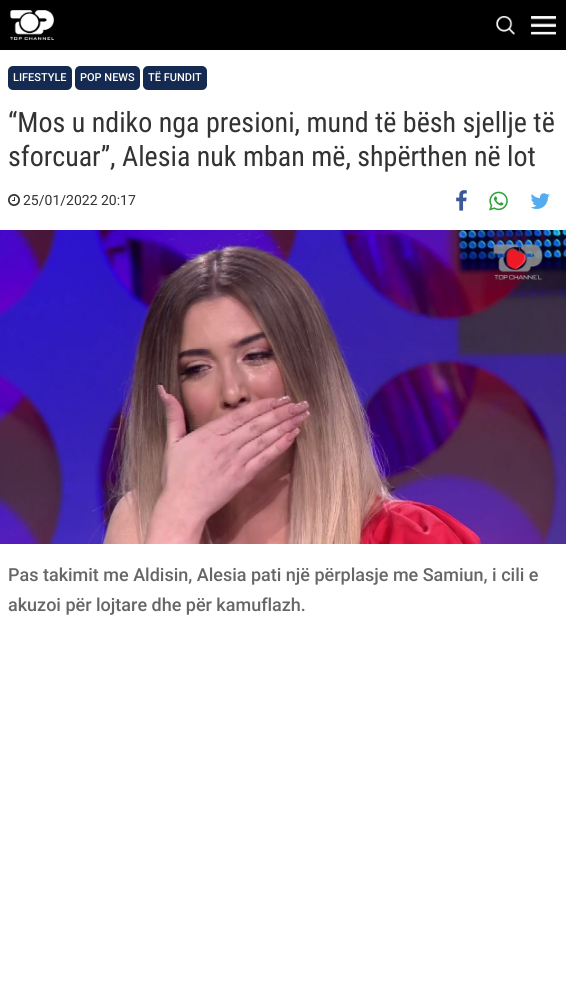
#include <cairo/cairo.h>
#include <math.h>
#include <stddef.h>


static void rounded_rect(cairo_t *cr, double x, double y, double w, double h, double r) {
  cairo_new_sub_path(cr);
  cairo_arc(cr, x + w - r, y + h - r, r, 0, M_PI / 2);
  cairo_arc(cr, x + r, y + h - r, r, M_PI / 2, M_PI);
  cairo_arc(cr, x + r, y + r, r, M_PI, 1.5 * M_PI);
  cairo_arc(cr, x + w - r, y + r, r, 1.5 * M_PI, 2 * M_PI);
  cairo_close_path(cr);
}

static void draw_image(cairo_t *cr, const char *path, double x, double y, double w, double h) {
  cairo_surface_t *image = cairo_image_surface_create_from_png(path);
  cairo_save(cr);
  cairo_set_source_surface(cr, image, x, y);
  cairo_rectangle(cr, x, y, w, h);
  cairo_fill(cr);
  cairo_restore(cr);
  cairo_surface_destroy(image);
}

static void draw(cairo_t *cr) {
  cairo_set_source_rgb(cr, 1, 1, 1);
  cairo_paint(cr);
  cairo_set_source_rgb(cr, 0, 0, 0);
  cairo_rectangle(cr, 0, 0, 566, 50);
  cairo_fill(cr);
  draw_image(cr, "images/1.png", 10, 10, 44, 30);
  draw_image(cr, "images/2.png", 496, 16, 19, 19);
  draw_image(cr, "images/3.png", 531, 16, 25, 19);
  cairo_set_source_rgb(cr, 20 / 255.0, 42 / 255.0, 81 / 255.0);
  rounded_rect(cr, 8, 66, 64, 24, 5);
  cairo_fill(cr);
  rounded_rect(cr, 75, 66, 65, 24, 5);
  cairo_fill(cr);
  rounded_rect(cr, 143, 66, 64, 24, 5);
  cairo_fill(cr);
  draw_image(cr, "images/4.png", 8, 194, 12, 12);
  draw_image(cr, "images/5.png", 456, 190, 11, 21);
  draw_image(cr, "images/6.png", 489, 191, 19, 20);
  draw_image(cr, "images/7.png", 530, 193, 20, 16);
  draw_image(cr, "images/8.png", 0, 230, 566, 314);
  cairo_select_font_face(cr, "Roboto Medium", CAIRO_FONT_SLANT_NORMAL, CAIRO_FONT_WEIGHT_NORMAL);
  cairo_set_font_size(cr, 11);
  cairo_set_source_rgb(cr, 1, 1, 1);
  cairo_move_to(cr, 13, 81);
  cairo_show_text(cr, "LIFESTYLE");
  cairo_move_to(cr, 80, 81);
  cairo_show_text(cr, "POP NEWS");
  cairo_move_to(cr, 148, 81);
  cairo_show_text(cr, "TË FUNDIT");
  cairo_select_font_face(cr, "Roboto Condensed", CAIRO_FONT_SLANT_NORMAL, CAIRO_FONT_WEIGHT_NORMAL);
  cairo_set_font_size(cr, 28);
  cairo_set_source_rgb(cr, 51 / 255.0, 51 / 255.0, 51 / 255.0);
  cairo_move_to(cr, 8, 132);
  cairo_show_text(cr, "“Mos u ndiko nga presioni, mund të bësh sjellje të");
  cairo_move_to(cr, 8, 166);
  cairo_show_text(cr, "sforcuar”, Alesia nuk mban më, shpërthen në lot");
  cairo_select_font_face(cr, "Roboto", CAIRO_FONT_SLANT_NORMAL, CAIRO_FONT_WEIGHT_NORMAL);
  cairo_set_font_size(cr, 14);
  cairo_move_to(cr, 23, 205);
  cairo_show_text(cr, "25/01/2022 20:17");
  cairo_select_font_face(cr, "Roboto Medium", CAIRO_FONT_SLANT_NORMAL, CAIRO_FONT_WEIGHT_NORMAL);
  cairo_set_font_size(cr, 18);
  cairo_set_source_rgb(cr, 102 / 255.0, 102 / 255.0, 102 / 255.0);
  cairo_move_to(cr, 8, 581);
  cairo_show_text(cr, "Pas takimit me Aldisin, Alesia pati një përplasje me Samiun, i cili e");
  cairo_move_to(cr, 8, 611);
  cairo_show_text(cr, "akuzoi për lojtare dhe për kamuflazh.");
}

int main(void) {
  cairo_surface_t *surface = cairo_image_surface_create(CAIRO_FORMAT_RGB24, 566, 996);
  cairo_t *cr = cairo_create(surface);
  cairo_font_options_t *options = cairo_font_options_create();
  cairo_font_options_set_hint_metrics(options, CAIRO_HINT_METRICS_OFF);
  cairo_font_options_set_hint_style(options, CAIRO_HINT_STYLE_NONE);
  cairo_set_font_options(cr, options);
  cairo_set_miter_limit(cr, 4);
  draw(cr);
  cairo_surface_write_to_png(surface, "out.png");
  cairo_font_options_destroy(options);
  cairo_destroy(cr);
  cairo_surface_destroy(surface);
  return 0;
}
